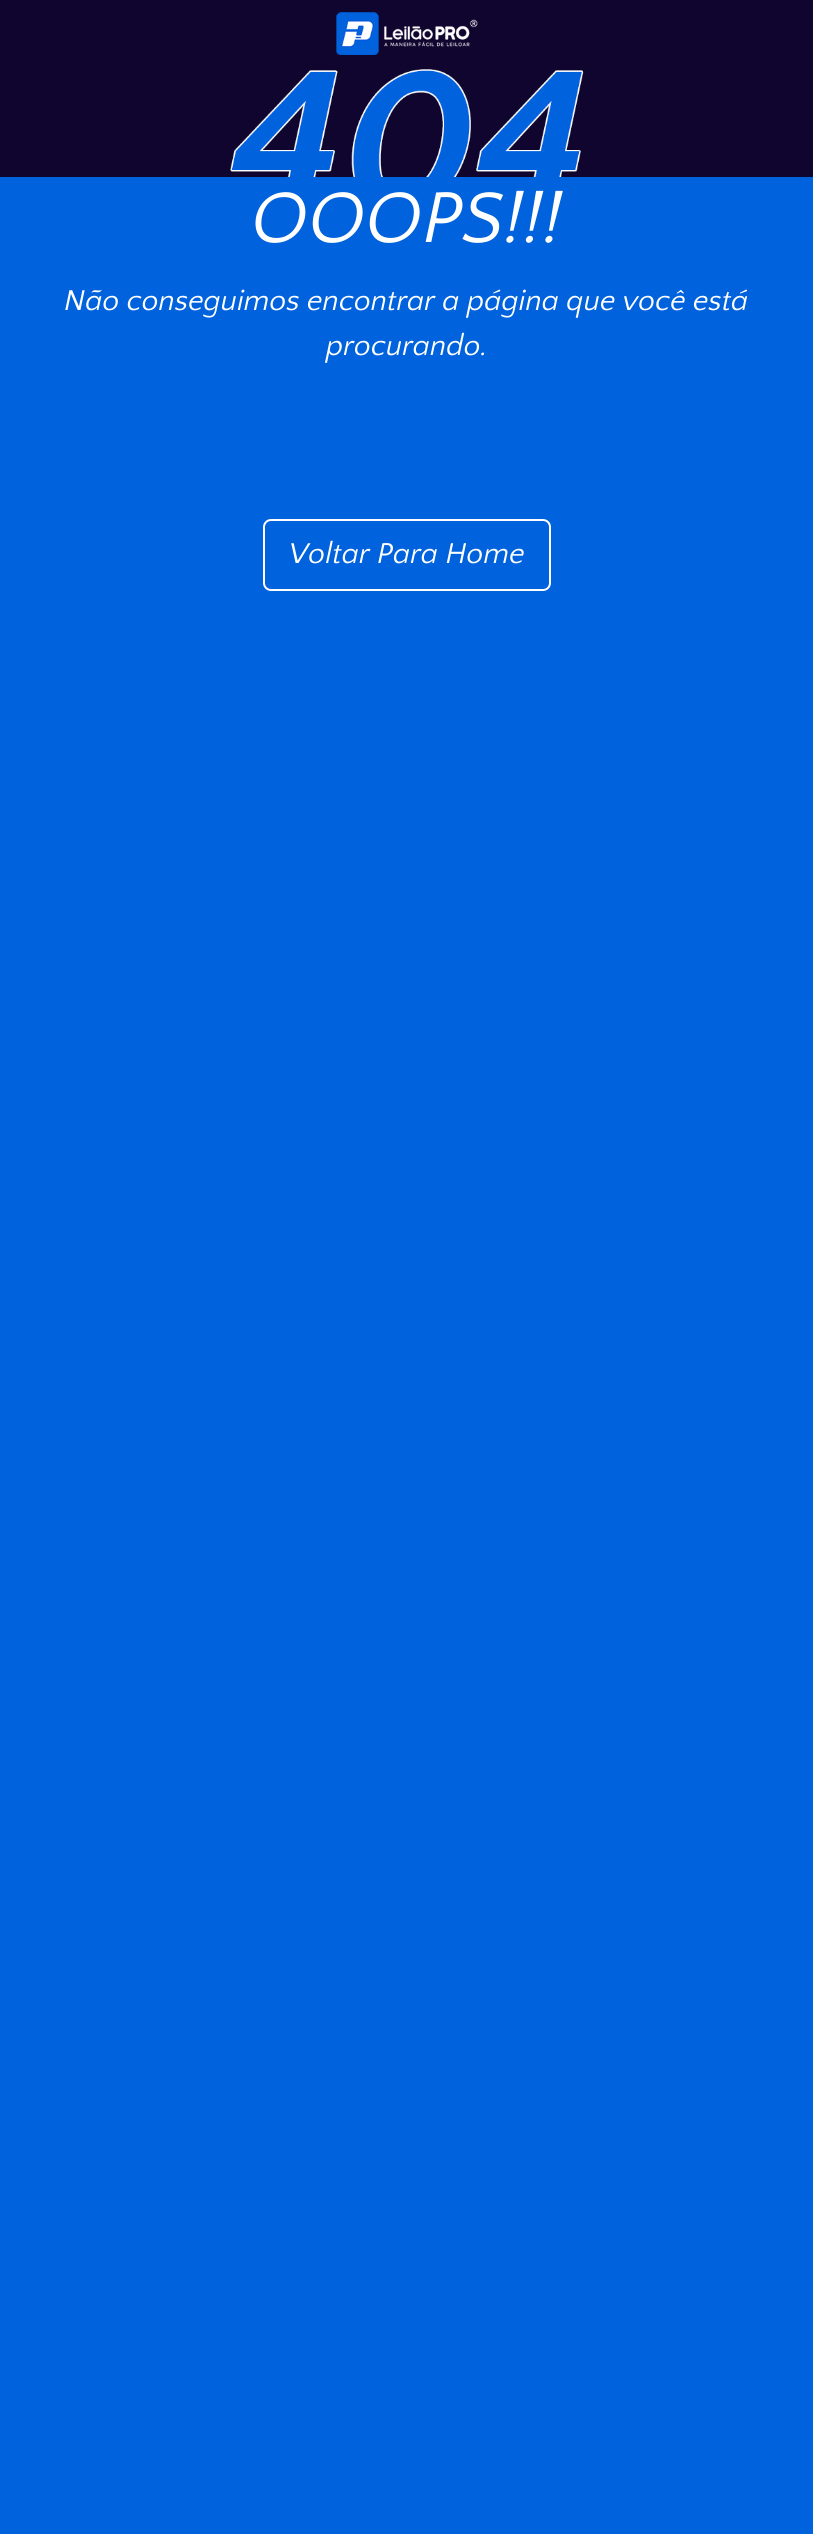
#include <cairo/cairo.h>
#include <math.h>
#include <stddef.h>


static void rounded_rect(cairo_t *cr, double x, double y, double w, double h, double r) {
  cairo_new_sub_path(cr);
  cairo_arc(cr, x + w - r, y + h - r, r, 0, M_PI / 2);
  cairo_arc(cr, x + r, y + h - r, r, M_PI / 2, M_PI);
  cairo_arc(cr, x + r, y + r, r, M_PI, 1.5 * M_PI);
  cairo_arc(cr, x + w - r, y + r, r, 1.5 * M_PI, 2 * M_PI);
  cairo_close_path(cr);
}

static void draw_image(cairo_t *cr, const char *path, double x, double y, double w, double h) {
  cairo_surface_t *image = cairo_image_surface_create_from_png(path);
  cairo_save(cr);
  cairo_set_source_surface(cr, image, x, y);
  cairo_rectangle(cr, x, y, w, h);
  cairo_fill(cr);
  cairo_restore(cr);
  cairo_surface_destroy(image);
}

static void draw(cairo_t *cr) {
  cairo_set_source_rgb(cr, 0, 98 / 255.0, 220 / 255.0);
  cairo_paint(cr);
  cairo_set_source_rgb(cr, 16 / 255.0, 5 / 255.0, 47 / 255.0);
  cairo_rectangle(cr, 0, 0, 813, 177);
  cairo_fill(cr);
  draw_image(cr, "images/1.png", 230, 12, 354, 165);
  rounded_rect(cr, 264, 520, 286, 70, 7);
  cairo_set_source_rgb(cr, 1, 1, 1);
  cairo_stroke(cr);
  cairo_select_font_face(cr, "Quattrocento Sans", CAIRO_FONT_SLANT_ITALIC, CAIRO_FONT_WEIGHT_NORMAL);
  cairo_set_font_size(cr, 75);
  cairo_move_to(cr, 251, 242);
  cairo_show_text(cr, "OOOPS!!!");
  cairo_set_font_size(cr, 30);
  cairo_move_to(cr, 64, 310);
  cairo_show_text(cr, "Não conseguimos encontrar a página que você está");
  cairo_move_to(cr, 326, 355);
  cairo_show_text(cr, "procurando.");
  cairo_move_to(cr, 289, 563);
  cairo_show_text(cr, "Voltar Para Home");
}

int main(void) {
  cairo_surface_t *surface = cairo_image_surface_create(CAIRO_FORMAT_RGB24, 813, 2534);
  cairo_t *cr = cairo_create(surface);
  cairo_font_options_t *options = cairo_font_options_create();
  cairo_font_options_set_hint_metrics(options, CAIRO_HINT_METRICS_OFF);
  cairo_font_options_set_hint_style(options, CAIRO_HINT_STYLE_NONE);
  cairo_set_font_options(cr, options);
  cairo_set_miter_limit(cr, 4);
  draw(cr);
  cairo_surface_write_to_png(surface, "out.png");
  cairo_font_options_destroy(options);
  cairo_destroy(cr);
  cairo_surface_destroy(surface);
  return 0;
}
